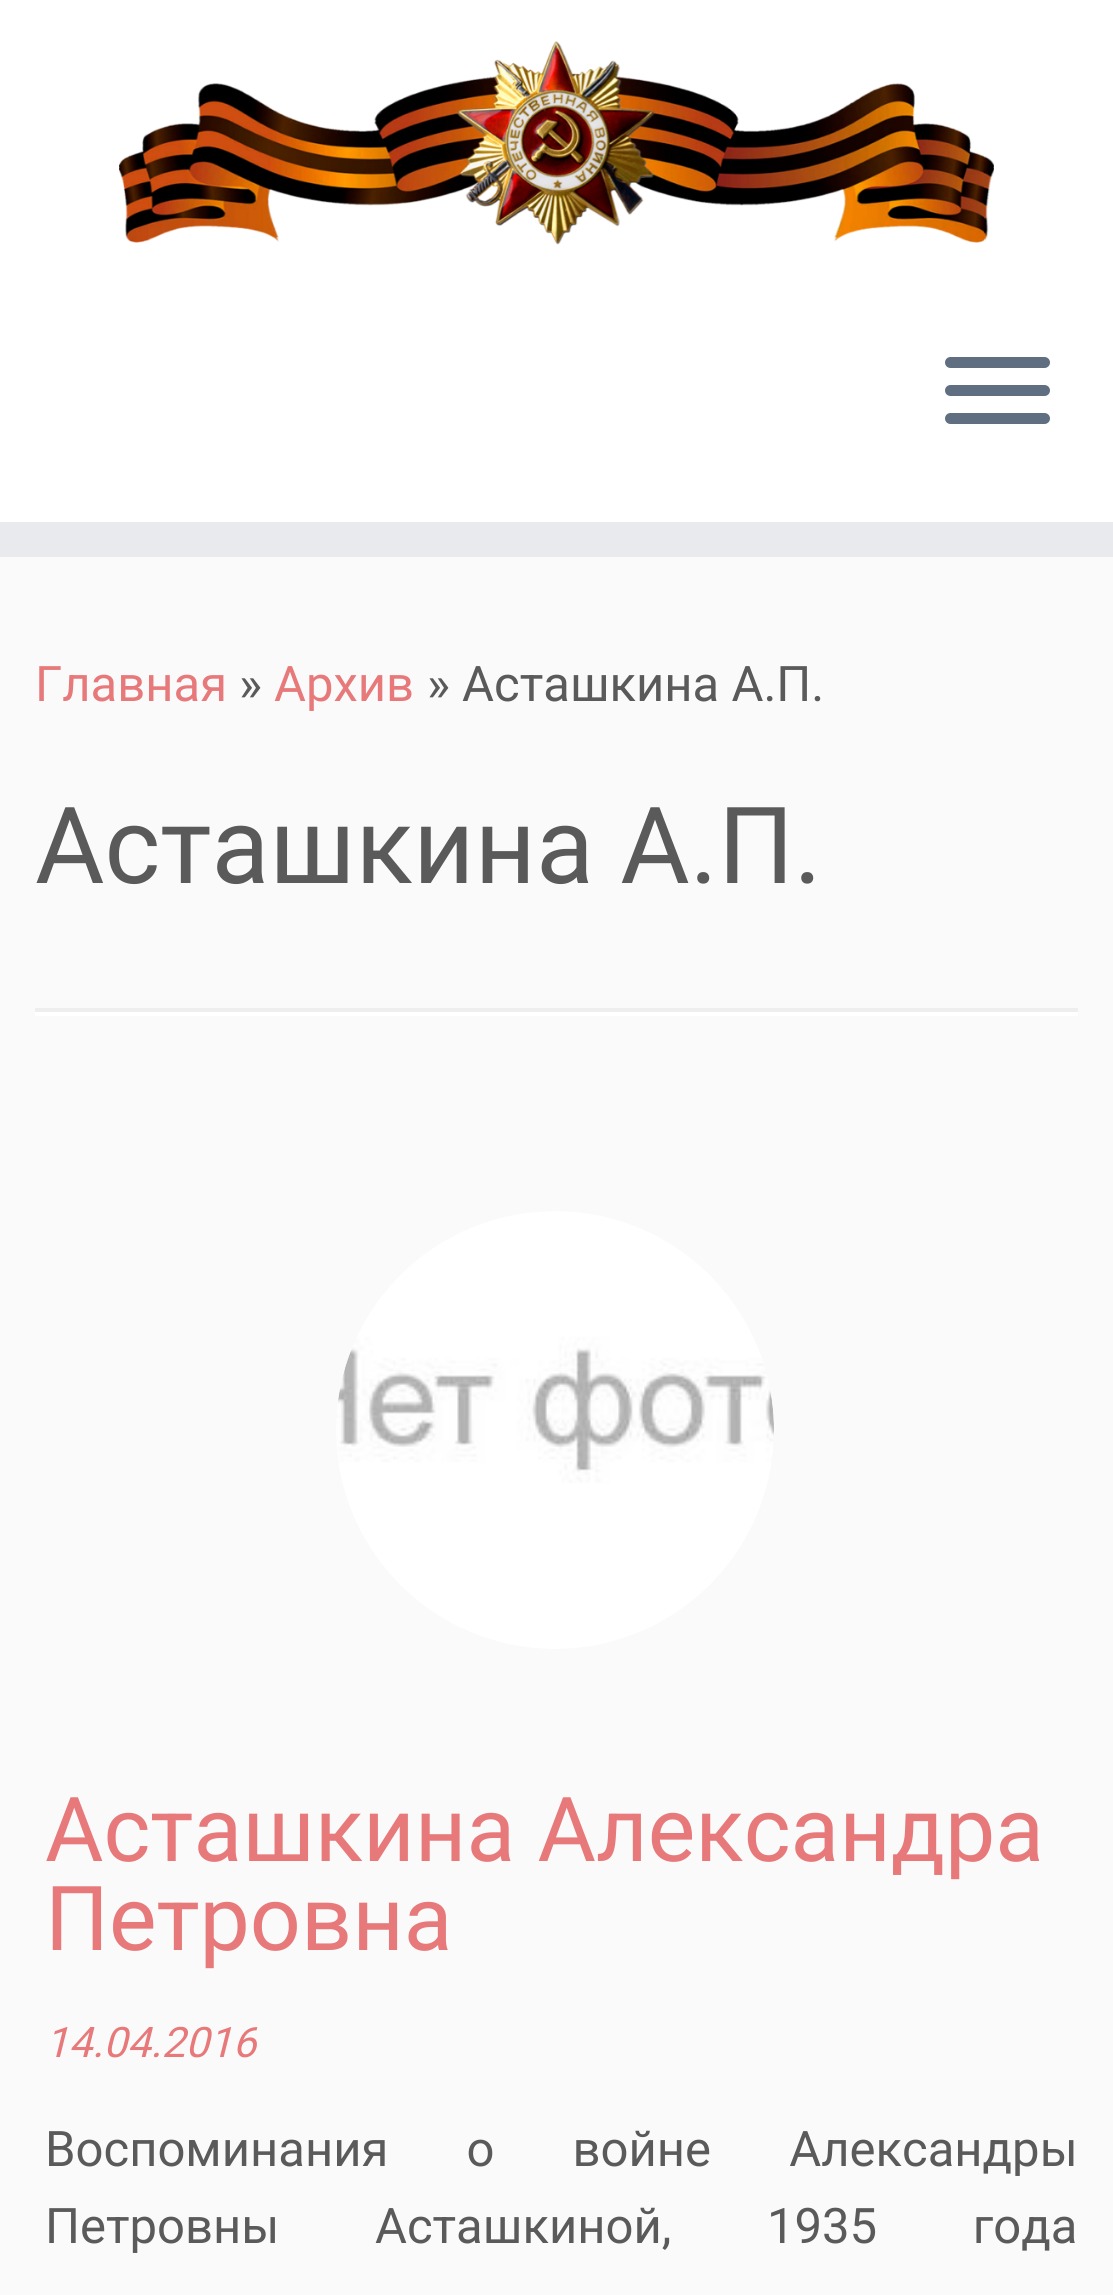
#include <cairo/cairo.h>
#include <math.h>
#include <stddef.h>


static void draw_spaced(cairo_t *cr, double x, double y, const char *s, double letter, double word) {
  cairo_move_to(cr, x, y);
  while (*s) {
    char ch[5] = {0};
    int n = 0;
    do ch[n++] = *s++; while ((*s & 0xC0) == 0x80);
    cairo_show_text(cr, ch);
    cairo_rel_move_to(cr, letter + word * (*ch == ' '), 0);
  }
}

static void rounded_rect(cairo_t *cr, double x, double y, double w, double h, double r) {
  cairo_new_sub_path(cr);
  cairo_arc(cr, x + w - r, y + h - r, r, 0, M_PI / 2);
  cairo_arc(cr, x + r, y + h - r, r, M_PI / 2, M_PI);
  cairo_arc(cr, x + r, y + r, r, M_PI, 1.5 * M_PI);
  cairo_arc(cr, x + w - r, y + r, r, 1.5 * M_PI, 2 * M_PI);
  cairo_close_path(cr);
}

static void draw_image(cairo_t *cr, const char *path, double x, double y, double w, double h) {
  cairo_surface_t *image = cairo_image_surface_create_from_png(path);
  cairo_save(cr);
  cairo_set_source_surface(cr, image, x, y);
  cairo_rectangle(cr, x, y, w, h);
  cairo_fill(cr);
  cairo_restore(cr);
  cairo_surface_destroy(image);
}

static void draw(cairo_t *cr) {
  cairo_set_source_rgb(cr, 250 / 255.0, 250 / 255.0, 250 / 255.0);
  cairo_paint(cr);
  cairo_set_source_rgb(cr, 1, 1, 1);
  cairo_rectangle(cr, 0, 0, 1113, 522);
  cairo_fill(cr);
  cairo_set_source_rgb(cr, 233 / 255.0, 234 / 255.0, 238 / 255.0);
  cairo_rectangle(cr, 0, 522, 1113, 35);
  cairo_fill(cr);
  draw_image(cr, "images/1.png", 119, 41, 875, 204);
  cairo_set_source_rgb(cr, 95 / 255.0, 111 / 255.0, 129 / 255.0);
  rounded_rect(cr, 945, 357, 105, 11, 5.5);
  cairo_fill(cr);
  rounded_rect(cr, 945, 385, 105, 11, 5.5);
  cairo_fill(cr);
  rounded_rect(cr, 945, 413, 105, 11, 5.5);
  cairo_fill(cr);
  cairo_set_source_rgb(cr, 238 / 255.0, 238 / 255.0, 238 / 255.0);
  cairo_rectangle(cr, 35, 1008, 1043, 4);
  cairo_fill(cr);
  cairo_set_source_rgb(cr, 1, 1, 1);
  cairo_rectangle(cr, 35, 1012, 1043, 4);
  cairo_fill(cr);
  draw_image(cr, "images/2.png", 336, 1211, 438, 438);
  cairo_select_font_face(cr, "Roboto", CAIRO_FONT_SLANT_NORMAL, CAIRO_FONT_WEIGHT_NORMAL);
  cairo_set_font_size(cr, 49);
  cairo_set_source_rgb(cr, 231 / 255.0, 121 / 255.0, 122 / 255.0);
  cairo_move_to(cr, 35, 701);
  cairo_show_text(cr, "Главная");
  cairo_set_source_rgb(cr, 90 / 255.0, 90 / 255.0, 90 / 255.0);
  cairo_move_to(cr, 239, 701);
  cairo_show_text(cr, "»");
  cairo_set_source_rgb(cr, 231 / 255.0, 121 / 255.0, 122 / 255.0);
  cairo_move_to(cr, 274, 701);
  cairo_show_text(cr, "Архив");
  cairo_set_source_rgb(cr, 90 / 255.0, 90 / 255.0, 90 / 255.0);
  cairo_move_to(cr, 427, 701);
  cairo_show_text(cr, "» Асташкина А.П.");
  cairo_set_font_size(cr, 106.5);
  cairo_move_to(cr, 35, 883);
  cairo_show_text(cr, "Асташкина А.П.");
  cairo_set_font_size(cr, 89.6);
  cairo_set_source_rgb(cr, 231 / 255.0, 121 / 255.0, 122 / 255.0);
  cairo_move_to(cr, 45, 1861);
  cairo_show_text(cr, "Асташкина Александра");
  cairo_move_to(cr, 45, 1950);
  cairo_show_text(cr, "Петровна");
  cairo_save(cr);
  cairo_rectangle(cr, 207, 1120, 700, 630);
  cairo_clip(cr);
  cairo_arc(cr, 555, 1430, 383.5, 0, 2 * M_PI);
  cairo_set_source_rgb(cr, 250 / 255.0, 250 / 255.0, 250 / 255.0);
  cairo_set_line_width(cr, 329);
  cairo_stroke(cr);
  cairo_arc(cr, 555, 1430, 383.5, 0, 2 * M_PI);
  cairo_stroke(cr);
  cairo_restore(cr);
  cairo_select_font_face(cr, "Roboto", CAIRO_FONT_SLANT_ITALIC, CAIRO_FONT_WEIGHT_NORMAL);
  cairo_set_font_size(cr, 42);
  cairo_move_to(cr, 45, 2057);
  cairo_show_text(cr, "14.04.2016");
  cairo_select_font_face(cr, "Roboto", CAIRO_FONT_SLANT_NORMAL, CAIRO_FONT_WEIGHT_NORMAL);
  cairo_set_font_size(cr, 49);
  cairo_set_source_rgb(cr, 90 / 255.0, 90 / 255.0, 90 / 255.0);
  draw_spaced(cr, 45, 2166, "Воспоминания о войне Александры", 0, 66);
  draw_spaced(cr, 45, 2243, "Петровны Асташкиной, 1935 года", 0, 83.5);
}

int main(void) {
  cairo_surface_t *surface = cairo_image_surface_create(CAIRO_FORMAT_RGB24, 1113, 2295);
  cairo_t *cr = cairo_create(surface);
  cairo_font_options_t *options = cairo_font_options_create();
  cairo_font_options_set_hint_metrics(options, CAIRO_HINT_METRICS_OFF);
  cairo_font_options_set_hint_style(options, CAIRO_HINT_STYLE_NONE);
  cairo_set_font_options(cr, options);
  cairo_set_miter_limit(cr, 4);
  draw(cr);
  cairo_surface_write_to_png(surface, "out.png");
  cairo_font_options_destroy(options);
  cairo_destroy(cr);
  cairo_surface_destroy(surface);
  return 0;
}
